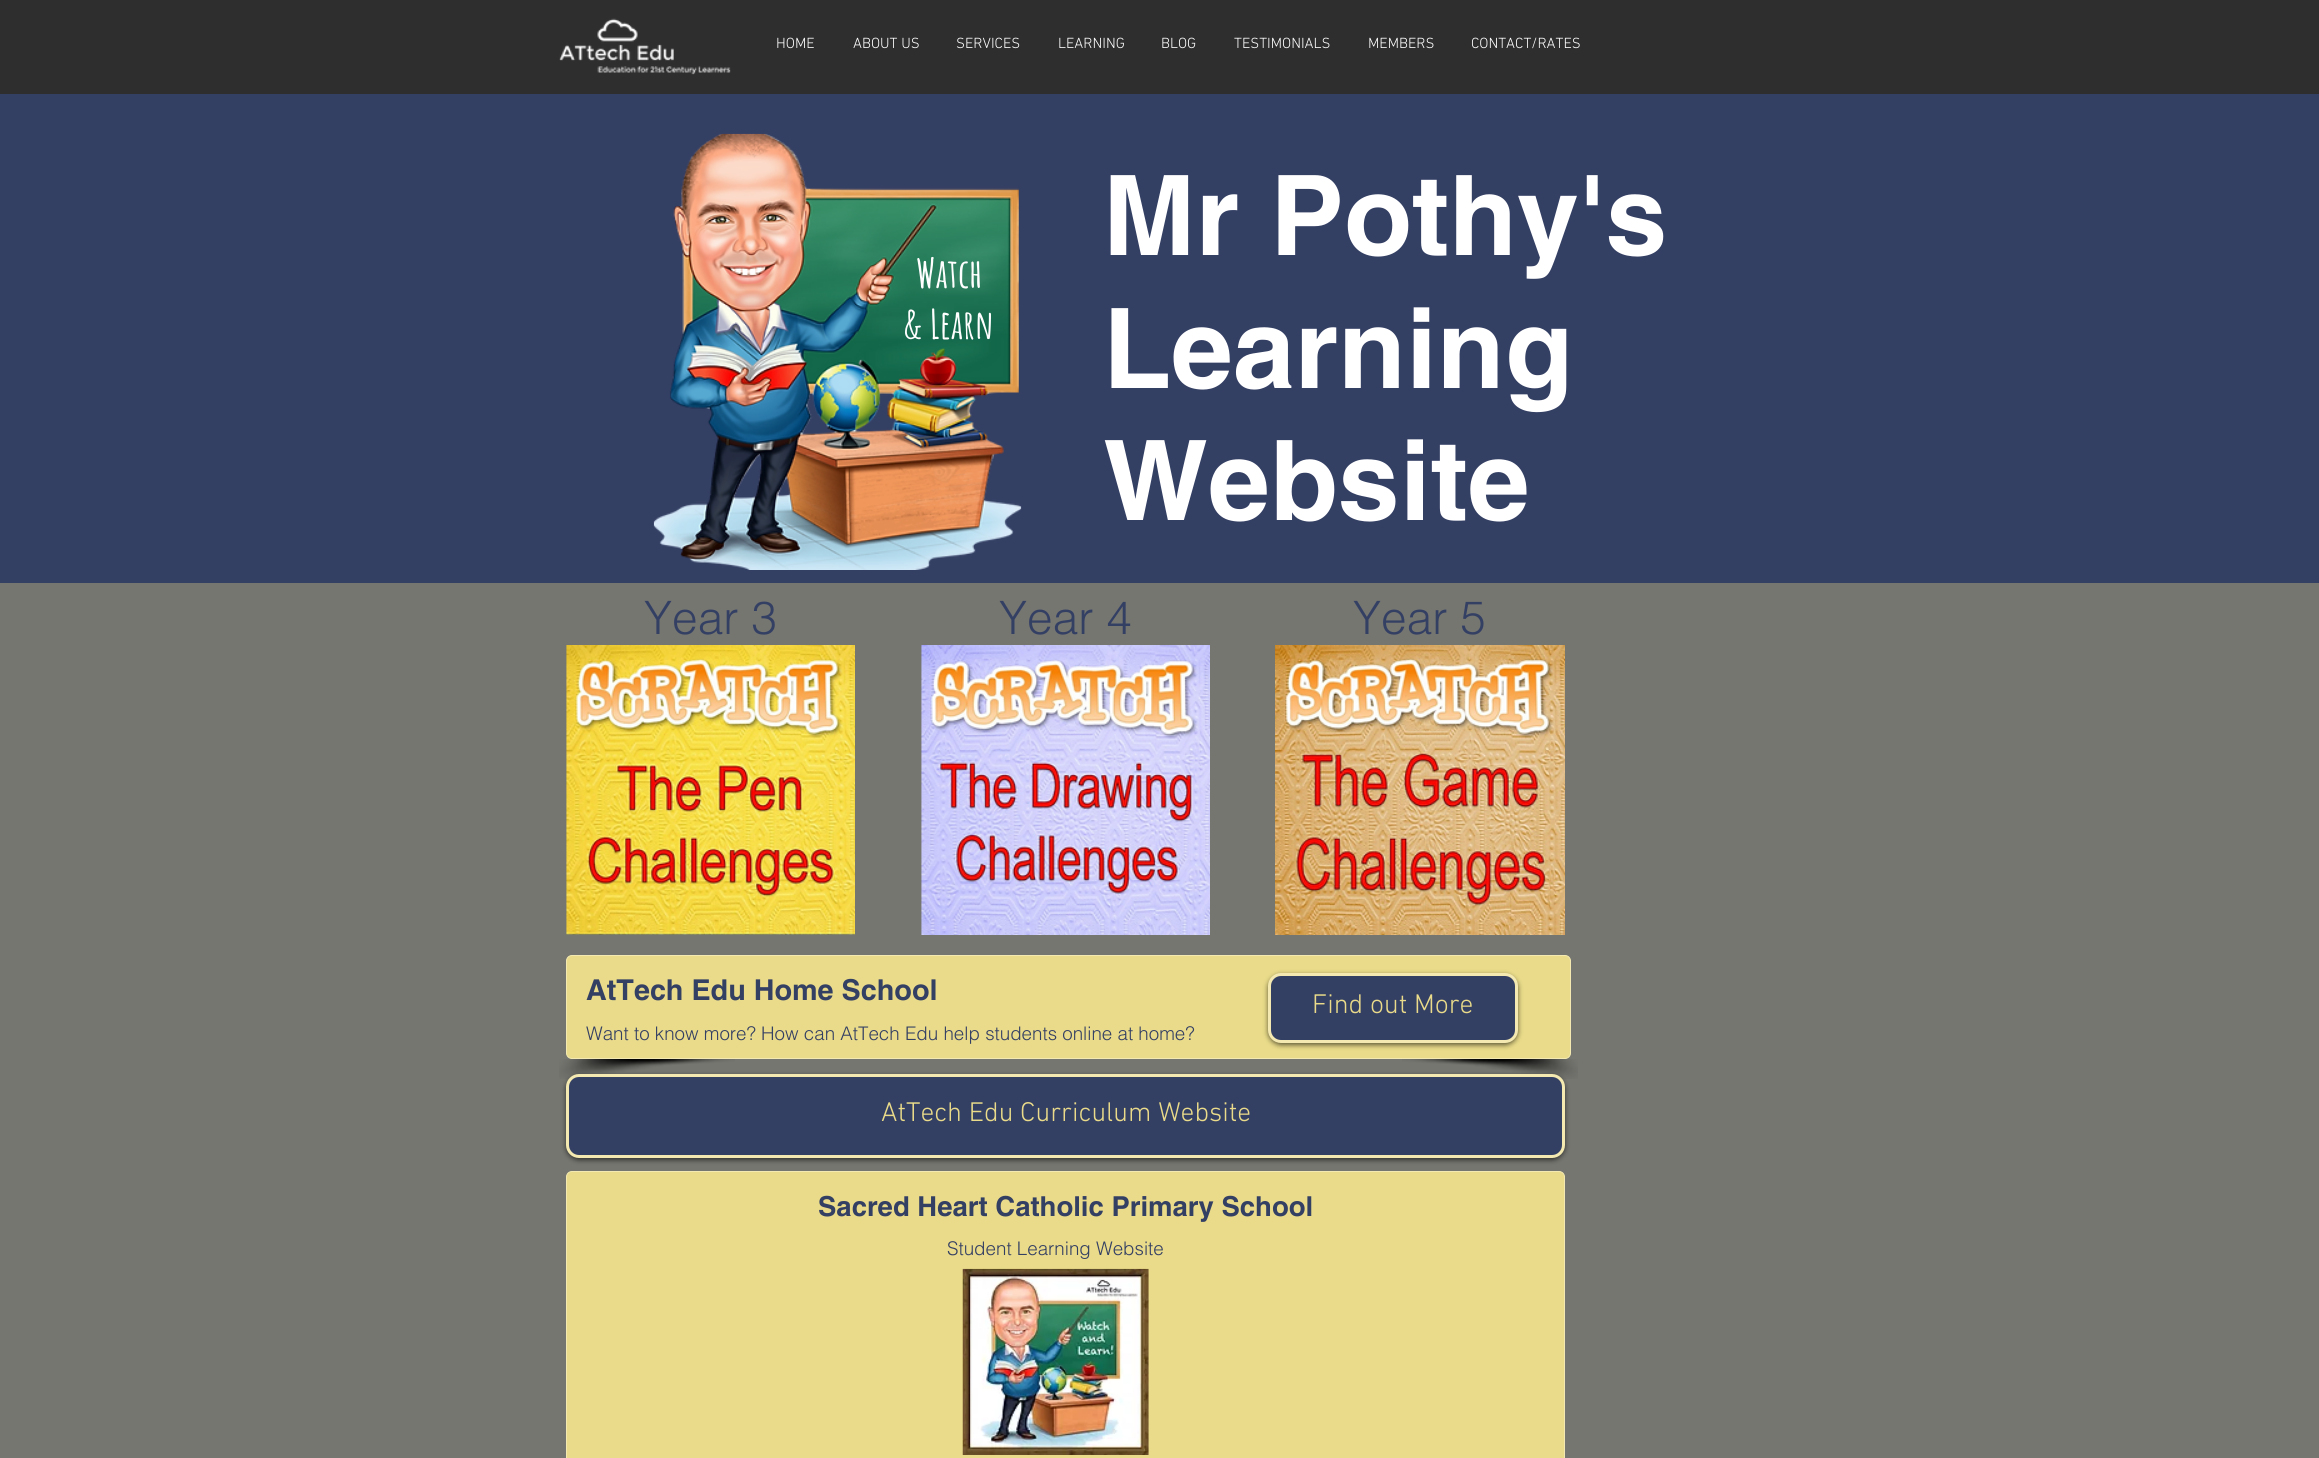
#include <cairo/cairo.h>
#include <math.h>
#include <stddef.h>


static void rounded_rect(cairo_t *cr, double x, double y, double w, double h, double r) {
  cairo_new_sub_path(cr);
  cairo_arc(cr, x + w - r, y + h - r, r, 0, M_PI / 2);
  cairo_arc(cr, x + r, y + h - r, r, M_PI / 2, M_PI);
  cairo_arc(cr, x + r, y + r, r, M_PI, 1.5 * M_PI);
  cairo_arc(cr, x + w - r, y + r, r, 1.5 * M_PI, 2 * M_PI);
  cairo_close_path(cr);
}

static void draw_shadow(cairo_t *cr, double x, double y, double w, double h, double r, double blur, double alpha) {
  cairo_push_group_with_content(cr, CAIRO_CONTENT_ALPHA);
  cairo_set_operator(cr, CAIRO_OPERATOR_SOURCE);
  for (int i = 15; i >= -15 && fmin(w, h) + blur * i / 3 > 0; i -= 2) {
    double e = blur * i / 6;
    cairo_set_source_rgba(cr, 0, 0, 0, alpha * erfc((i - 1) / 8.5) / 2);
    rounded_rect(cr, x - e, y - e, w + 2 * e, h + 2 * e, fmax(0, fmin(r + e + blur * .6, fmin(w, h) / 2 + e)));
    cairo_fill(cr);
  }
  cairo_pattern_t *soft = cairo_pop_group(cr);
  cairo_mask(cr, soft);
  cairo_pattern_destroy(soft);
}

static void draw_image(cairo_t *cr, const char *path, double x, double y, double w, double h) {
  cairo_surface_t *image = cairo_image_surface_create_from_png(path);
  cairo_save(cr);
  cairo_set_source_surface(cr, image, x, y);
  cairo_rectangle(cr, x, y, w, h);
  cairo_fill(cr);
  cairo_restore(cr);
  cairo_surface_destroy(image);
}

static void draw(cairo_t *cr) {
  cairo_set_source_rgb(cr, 52 / 255.0, 63 / 255.0, 100 / 255.0);
  cairo_paint(cr);
  cairo_set_source_rgb(cr, 47 / 255.0, 46 / 255.0, 46 / 255.0);
  cairo_rectangle(cr, 0, 0, 2319, 94);
  cairo_fill(cr);
  draw_image(cr, "images/1.png", 559, 18, 172, 57);
  draw_image(cr, "images/2.png", 653, 133, 369, 437);
  cairo_set_source_rgb(cr, 117 / 255.0, 118 / 255.0, 112 / 255.0);
  cairo_rectangle(cr, 0, 583, 2319, 875);
  cairo_fill(cr);
  draw_image(cr, "images/3.png", 566, 645, 289, 290);
  draw_image(cr, "images/4.png", 921, 645, 289, 290);
  draw_image(cr, "images/5.png", 1275, 645, 290, 290);
  draw_image(cr, "images/7.png", 1402, 1058, 176, 21);
  cairo_set_source_rgb(cr, 233 / 255.0, 219 / 255.0, 137 / 255.0);
  rounded_rect(cr, 566.5, 955.5, 1004, 103, 5.5);
  cairo_fill_preserve(cr);
  cairo_set_source_rgb(cr, 244 / 255.0, 234 / 255.0, 177 / 255.0);
  cairo_set_line_width(cr, 1);
  cairo_stroke(cr);
  cairo_set_source_rgb(cr, 0, 0, 0);
  draw_shadow(cr, 1268, 975, 250, 70, 13, 2.5, 0.6);
  cairo_set_source_rgb(cr, 52 / 255.0, 63 / 255.0, 100 / 255.0);
  rounded_rect(cr, 1269.5, 974.5, 247, 67, 11.5);
  cairo_fill_preserve(cr);
  cairo_set_source_rgb(cr, 244 / 255.0, 234 / 255.0, 177 / 255.0);
  cairo_set_line_width(cr, 3);
  cairo_stroke(cr);
  draw_image(cr, "images/6.png", 559, 1059, 176, 20);
  cairo_set_source_rgb(cr, 0, 0, 0);
  draw_shadow(cr, 566, 1076, 999, 84, 13, 2.5, 0.6);
  cairo_set_source_rgb(cr, 52 / 255.0, 63 / 255.0, 100 / 255.0);
  rounded_rect(cr, 567.5, 1075.5, 996, 81, 11.5);
  cairo_fill_preserve(cr);
  cairo_set_source_rgb(cr, 244 / 255.0, 234 / 255.0, 177 / 255.0);
  cairo_stroke(cr);
  cairo_set_source_rgb(cr, 233 / 255.0, 219 / 255.0, 137 / 255.0);
  rounded_rect(cr, 566.5, 1171.5, 998, 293, 5.5);
  cairo_fill_preserve(cr);
  cairo_set_source_rgb(cr, 244 / 255.0, 234 / 255.0, 177 / 255.0);
  cairo_set_line_width(cr, 1);
  cairo_stroke(cr);
  draw_image(cr, "images/8.png", 962, 1268, 187, 187);
  cairo_select_font_face(cr, "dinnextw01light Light", CAIRO_FONT_SLANT_NORMAL, CAIRO_FONT_WEIGHT_NORMAL);
  cairo_set_font_size(cr, 15);
  cairo_set_source_rgb(cr, 1, 1, 1);
  cairo_move_to(cr, 776, 48);
  cairo_show_text(cr, "HOME");
  cairo_move_to(cr, 853, 48);
  cairo_show_text(cr, "ABOUT US");
  cairo_move_to(cr, 956, 48);
  cairo_show_text(cr, "SERVICES");
  cairo_move_to(cr, 1058, 48);
  cairo_show_text(cr, "LEARNING");
  cairo_move_to(cr, 1161, 48);
  cairo_show_text(cr, "BLOG");
  cairo_move_to(cr, 1234, 48);
  cairo_show_text(cr, "TESTIMONIALS");
  cairo_move_to(cr, 1368, 48);
  cairo_show_text(cr, "MEMBERS");
  cairo_move_to(cr, 1471, 48);
  cairo_show_text(cr, "CONTACT/RATES");
  cairo_select_font_face(cr, "helvetica", CAIRO_FONT_SLANT_NORMAL, CAIRO_FONT_WEIGHT_BOLD);
  cairo_set_font_size(cr, 111.25);
  cairo_move_to(cr, 1103, 255);
  cairo_show_text(cr, "Mr Pothy's");
  cairo_move_to(cr, 1103, 388);
  cairo_show_text(cr, "Learning");
  cairo_move_to(cr, 1103, 520);
  cairo_show_text(cr, "Website");
  cairo_select_font_face(cr, "Amatic SC", CAIRO_FONT_SLANT_NORMAL, CAIRO_FONT_WEIGHT_BOLD);
  cairo_set_font_size(cr, 40);
  cairo_move_to(cr, 916, 288);
  cairo_show_text(cr, "Watch");
  cairo_move_to(cr, 903, 339);
  cairo_show_text(cr, "& Learn");
  cairo_select_font_face(cr, "helvetica Light", CAIRO_FONT_SLANT_NORMAL, CAIRO_FONT_WEIGHT_NORMAL);
  cairo_set_font_size(cr, 46);
  cairo_set_source_rgb(cr, 52 / 255.0, 63 / 255.0, 100 / 255.0);
  cairo_move_to(cr, 644, 634);
  cairo_show_text(cr, "Year 3");
  cairo_move_to(cr, 999, 634);
  cairo_show_text(cr, "Year 4");
  cairo_move_to(cr, 1353, 634);
  cairo_show_text(cr, "Year 5");
  cairo_select_font_face(cr, "helvetica", CAIRO_FONT_SLANT_NORMAL, CAIRO_FONT_WEIGHT_BOLD);
  cairo_set_font_size(cr, 28.75);
  cairo_move_to(cr, 586, 1000);
  cairo_show_text(cr, "AtTech Edu Home School");
  cairo_select_font_face(cr, "dinnextw01light Light", CAIRO_FONT_SLANT_NORMAL, CAIRO_FONT_WEIGHT_NORMAL);
  cairo_set_font_size(cr, 27.5);
  cairo_set_source_rgb(cr, 233 / 255.0, 219 / 255.0, 137 / 255.0);
  cairo_move_to(cr, 1312, 1013);
  cairo_show_text(cr, "Find out More");
  cairo_select_font_face(cr, "helvetica Light", CAIRO_FONT_SLANT_NORMAL, CAIRO_FONT_WEIGHT_NORMAL);
  cairo_set_font_size(cr, 18.75);
  cairo_set_source_rgb(cr, 52 / 255.0, 63 / 255.0, 100 / 255.0);
  cairo_move_to(cr, 586, 1040);
  cairo_show_text(cr, "Want to know more? How can AtTech Edu help students online at home?");
  cairo_select_font_face(cr, "dinnextw01light Light", CAIRO_FONT_SLANT_NORMAL, CAIRO_FONT_WEIGHT_NORMAL);
  cairo_set_font_size(cr, 27.5);
  cairo_set_source_rgb(cr, 233 / 255.0, 219 / 255.0, 137 / 255.0);
  cairo_move_to(cr, 881, 1121);
  cairo_show_text(cr, "AtTech Edu Curriculum Website");
  cairo_select_font_face(cr, "helvetica", CAIRO_FONT_SLANT_NORMAL, CAIRO_FONT_WEIGHT_BOLD);
  cairo_set_source_rgb(cr, 52 / 255.0, 63 / 255.0, 100 / 255.0);
  cairo_move_to(cr, 818, 1216);
  cairo_show_text(cr, "Sacred Heart Catholic Primary School");
  cairo_select_font_face(cr, "helvetica Light", CAIRO_FONT_SLANT_NORMAL, CAIRO_FONT_WEIGHT_NORMAL);
  cairo_set_font_size(cr, 18.75);
  cairo_move_to(cr, 947, 1255);
  cairo_show_text(cr, "Student Learning Website");
}

int main(void) {
  cairo_surface_t *surface = cairo_image_surface_create(CAIRO_FORMAT_RGB24, 2319, 1458);
  cairo_t *cr = cairo_create(surface);
  cairo_font_options_t *options = cairo_font_options_create();
  cairo_font_options_set_hint_metrics(options, CAIRO_HINT_METRICS_OFF);
  cairo_font_options_set_hint_style(options, CAIRO_HINT_STYLE_NONE);
  cairo_set_font_options(cr, options);
  cairo_set_miter_limit(cr, 4);
  draw(cr);
  cairo_surface_write_to_png(surface, "out.png");
  cairo_font_options_destroy(options);
  cairo_destroy(cr);
  cairo_surface_destroy(surface);
  return 0;
}
